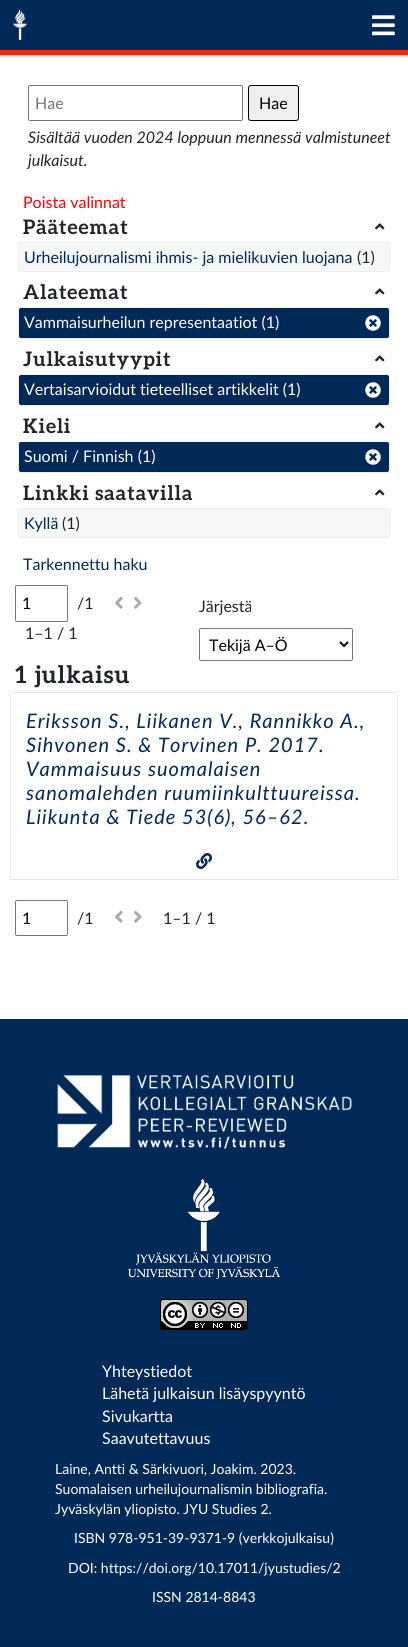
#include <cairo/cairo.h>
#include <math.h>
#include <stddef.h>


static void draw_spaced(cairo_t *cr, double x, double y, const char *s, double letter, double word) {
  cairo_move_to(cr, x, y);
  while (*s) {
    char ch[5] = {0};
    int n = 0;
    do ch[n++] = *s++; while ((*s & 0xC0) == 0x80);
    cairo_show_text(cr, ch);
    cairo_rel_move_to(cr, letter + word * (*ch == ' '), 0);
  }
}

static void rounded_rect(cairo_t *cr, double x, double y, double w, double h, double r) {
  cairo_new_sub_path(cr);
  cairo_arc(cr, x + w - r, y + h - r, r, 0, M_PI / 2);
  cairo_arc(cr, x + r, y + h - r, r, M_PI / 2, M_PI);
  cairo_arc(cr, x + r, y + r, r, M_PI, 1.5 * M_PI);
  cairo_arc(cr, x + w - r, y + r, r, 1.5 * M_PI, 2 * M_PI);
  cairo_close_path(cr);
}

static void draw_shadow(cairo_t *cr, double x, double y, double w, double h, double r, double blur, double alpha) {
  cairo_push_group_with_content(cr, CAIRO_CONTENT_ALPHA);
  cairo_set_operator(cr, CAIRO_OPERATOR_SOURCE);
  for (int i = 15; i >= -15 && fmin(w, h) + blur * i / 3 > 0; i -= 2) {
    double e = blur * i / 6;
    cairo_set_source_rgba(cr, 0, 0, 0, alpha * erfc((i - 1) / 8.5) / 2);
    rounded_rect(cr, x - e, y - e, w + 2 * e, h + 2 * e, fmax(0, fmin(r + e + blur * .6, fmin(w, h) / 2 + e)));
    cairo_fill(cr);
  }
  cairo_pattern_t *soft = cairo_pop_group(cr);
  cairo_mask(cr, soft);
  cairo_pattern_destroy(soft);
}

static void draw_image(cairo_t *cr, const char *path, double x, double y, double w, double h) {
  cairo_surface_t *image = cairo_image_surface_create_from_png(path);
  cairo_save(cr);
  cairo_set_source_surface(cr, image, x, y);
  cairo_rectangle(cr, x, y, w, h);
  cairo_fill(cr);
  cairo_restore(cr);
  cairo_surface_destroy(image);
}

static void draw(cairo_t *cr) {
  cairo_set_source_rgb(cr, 1, 1, 1);
  cairo_paint(cr);
  cairo_set_source_rgb(cr, 0, 0, 0);
  draw_shadow(cr, 0, 5, 408, 50, 0, 2.5, 0.3);
  cairo_set_source_rgb(cr, 0, 41 / 255.0, 87 / 255.0);
  cairo_rectangle(cr, 0, 0, 408, 50);
  cairo_fill(cr);
  draw_image(cr, "images/1.png", 13, 10, 14, 30);
  draw_image(cr, "images/2.png", 372, 15, 23, 21);
  cairo_set_source_rgb(cr, 225 / 255.0, 49 / 255.0, 10 / 255.0);
  cairo_rectangle(cr, 0, 50, 408, 5);
  cairo_fill(cr);
  rounded_rect(cr, 28.5, 85.5, 214, 35, 1.5);
  cairo_set_source_rgb(cr, 118 / 255.0, 118 / 255.0, 118 / 255.0);
  cairo_set_line_width(cr, 1);
  cairo_stroke(cr);
  cairo_set_source_rgb(cr, 239 / 255.0, 239 / 255.0, 239 / 255.0);
  rounded_rect(cr, 248.5, 85.5, 50, 35, 2.5);
  cairo_fill_preserve(cr);
  cairo_set_source_rgb(cr, 0, 0, 0);
  cairo_stroke(cr);
  draw_image(cr, "images/3.png", 375, 223, 10, 7);
  cairo_set_source_rgb(cr, 246 / 255.0, 247 / 255.0, 247 / 255.0);
  rounded_rect(cr, 18.5, 242.5, 371, 29, 2.5);
  cairo_fill_preserve(cr);
  cairo_set_source_rgb(cr, 238 / 255.0, 238 / 255.0, 238 / 255.0);
  cairo_stroke(cr);
  draw_image(cr, "images/3.png", 375, 288, 10, 7);
  cairo_set_source_rgb(cr, 0, 41 / 255.0, 87 / 255.0);
  rounded_rect(cr, 18.5, 307.5, 371, 31, 2.5);
  cairo_fill_preserve(cr);
  cairo_set_source_rgb(cr, 238 / 255.0, 238 / 255.0, 238 / 255.0);
  cairo_stroke(cr);
  draw_image(cr, "images/4.png", 365, 315, 16, 16);
  draw_image(cr, "images/3.png", 375, 355, 10, 7);
  cairo_set_source_rgb(cr, 0, 41 / 255.0, 87 / 255.0);
  rounded_rect(cr, 18.5, 374.5, 371, 31, 2.5);
  cairo_fill_preserve(cr);
  cairo_set_source_rgb(cr, 238 / 255.0, 238 / 255.0, 238 / 255.0);
  cairo_stroke(cr);
  draw_image(cr, "images/4.png", 365, 382, 16, 16);
  draw_image(cr, "images/3.png", 375, 422, 10, 7);
  cairo_set_source_rgb(cr, 0, 41 / 255.0, 87 / 255.0);
  rounded_rect(cr, 18.5, 441.5, 371, 31, 2.5);
  cairo_fill_preserve(cr);
  cairo_set_source_rgb(cr, 238 / 255.0, 238 / 255.0, 238 / 255.0);
  cairo_stroke(cr);
  draw_image(cr, "images/4.png", 365, 449, 16, 16);
  draw_image(cr, "images/3.png", 375, 489, 10, 7);
  cairo_set_source_rgb(cr, 246 / 255.0, 247 / 255.0, 247 / 255.0);
  rounded_rect(cr, 18.5, 508.5, 371, 29, 2.5);
  cairo_fill_preserve(cr);
  cairo_set_source_rgb(cr, 238 / 255.0, 238 / 255.0, 238 / 255.0);
  cairo_stroke(cr);
  rounded_rect(cr, 15.5, 585.5, 52, 36, 1.5);
  cairo_set_source_rgb(cr, 118 / 255.0, 118 / 255.0, 118 / 255.0);
  cairo_stroke(cr);
  draw_image(cr, "images/5.png", 115, 596, 8, 13);
  draw_image(cr, "images/6.png", 134, 596, 8, 13);
  rounded_rect(cr, 199.5, 628.5, 153, 32, 1.5);
  cairo_stroke(cr);
  cairo_new_path(cr);
  cairo_move_to(cr, 340, 642);
  cairo_line_to(cr, 344, 646);
  cairo_line_to(cr, 348, 642);
  cairo_set_source_rgb(cr, 0, 0, 0);
  cairo_set_line_width(cr, 2);
  cairo_stroke(cr);
  rounded_rect(cr, 10.5, 692.5, 387, 187, 2.5);
  cairo_set_source_rgb(cr, 230 / 255.0, 230 / 255.0, 230 / 255.0);
  cairo_set_line_width(cr, 1);
  cairo_stroke(cr);
  cairo_set_source_rgb(cr, 1, 1, 1);
  cairo_rectangle(cr, 11, 693, 386, 2);
  cairo_fill(cr);
  draw_image(cr, "images/7.png", 196, 853, 16, 16);
  rounded_rect(cr, 15.5, 900.5, 52, 35, 1.5);
  cairo_set_source_rgb(cr, 118 / 255.0, 118 / 255.0, 118 / 255.0);
  cairo_stroke(cr);
  draw_image(cr, "images/5.png", 115, 910, 8, 13);
  draw_image(cr, "images/6.png", 134, 910, 8, 13);
  cairo_set_source_rgb(cr, 0, 41 / 255.0, 87 / 255.0);
  cairo_rectangle(cr, 0, 1019, 408, 628);
  cairo_fill(cr);
  draw_image(cr, "images/8.png", 57, 1075, 295, 74);
  draw_image(cr, "images/9.png", 128, 1179, 152, 100);
  draw_image(cr, "images/10.png", 160, 1299, 88, 31);
  cairo_select_font_face(cr, "Lato", CAIRO_FONT_SLANT_NORMAL, CAIRO_FONT_WEIGHT_NORMAL);
  cairo_set_font_size(cr, 16);
  cairo_set_source_rgb(cr, 117 / 255.0, 117 / 255.0, 117 / 255.0);
  cairo_move_to(cr, 35, 109);
  cairo_show_text(cr, "Hae");
  cairo_set_source_rgb(cr, 0, 0, 0);
  cairo_move_to(cr, 259, 109);
  cairo_show_text(cr, "Hae");
  cairo_select_font_face(cr, "Lato", CAIRO_FONT_SLANT_ITALIC, CAIRO_FONT_WEIGHT_NORMAL);
  cairo_set_source_rgb(cr, 33 / 255.0, 37 / 255.0, 41 / 255.0);
  cairo_move_to(cr, 28, 143);
  cairo_show_text(cr, "Sisältää vuoden 2024 loppuun mennessä valmistuneet");
  cairo_move_to(cr, 28, 166);
  cairo_show_text(cr, "julkaisut.");
  cairo_select_font_face(cr, "Lato", CAIRO_FONT_SLANT_NORMAL, CAIRO_FONT_WEIGHT_NORMAL);
  cairo_set_source_rgb(cr, 1, 0, 0);
  cairo_move_to(cr, 23, 208);
  cairo_show_text(cr, "Poista valinnat");
  cairo_select_font_face(cr, "Aleo", CAIRO_FONT_SLANT_NORMAL, CAIRO_FONT_WEIGHT_BOLD);
  cairo_set_font_size(cr, 20);
  cairo_set_source_rgb(cr, 33 / 255.0, 37 / 255.0, 41 / 255.0);
  draw_spaced(cr, 23, 234, "Pääteemat", 1, 0);
  cairo_select_font_face(cr, "Lato", CAIRO_FONT_SLANT_NORMAL, CAIRO_FONT_WEIGHT_NORMAL);
  cairo_set_font_size(cr, 16);
  cairo_set_source_rgb(cr, 0, 41 / 255.0, 87 / 255.0);
  cairo_move_to(cr, 24, 263);
  cairo_show_text(cr, "Urheilujournalismi ihmis- ja mielikuvien luojana");
  cairo_set_source_rgb(cr, 33 / 255.0, 37 / 255.0, 41 / 255.0);
  cairo_move_to(cr, 357, 263);
  cairo_show_text(cr, "(1)");
  cairo_select_font_face(cr, "Aleo", CAIRO_FONT_SLANT_NORMAL, CAIRO_FONT_WEIGHT_BOLD);
  cairo_set_font_size(cr, 20);
  draw_spaced(cr, 23, 299, "Alateemat", 1, 0);
  cairo_select_font_face(cr, "Lato", CAIRO_FONT_SLANT_NORMAL, CAIRO_FONT_WEIGHT_NORMAL);
  cairo_set_font_size(cr, 16);
  cairo_set_source_rgb(cr, 1, 1, 1);
  cairo_move_to(cr, 24, 328);
  cairo_show_text(cr, "Vammaisurheilun representaatiot (1)");
  cairo_select_font_face(cr, "Aleo", CAIRO_FONT_SLANT_NORMAL, CAIRO_FONT_WEIGHT_BOLD);
  cairo_set_font_size(cr, 20);
  cairo_set_source_rgb(cr, 33 / 255.0, 37 / 255.0, 41 / 255.0);
  draw_spaced(cr, 23, 366, "Julkaisutyypit", 1, 0);
  cairo_select_font_face(cr, "Lato", CAIRO_FONT_SLANT_NORMAL, CAIRO_FONT_WEIGHT_NORMAL);
  cairo_set_font_size(cr, 16);
  cairo_set_source_rgb(cr, 1, 1, 1);
  cairo_move_to(cr, 24, 395);
  cairo_show_text(cr, "Vertaisarvioidut tieteelliset artikkelit (1)");
  cairo_select_font_face(cr, "Aleo", CAIRO_FONT_SLANT_NORMAL, CAIRO_FONT_WEIGHT_BOLD);
  cairo_set_font_size(cr, 20);
  cairo_set_source_rgb(cr, 33 / 255.0, 37 / 255.0, 41 / 255.0);
  draw_spaced(cr, 23, 433, "Kieli", 1, 0);
  cairo_select_font_face(cr, "Lato", CAIRO_FONT_SLANT_NORMAL, CAIRO_FONT_WEIGHT_NORMAL);
  cairo_set_font_size(cr, 16);
  cairo_set_source_rgb(cr, 1, 1, 1);
  cairo_move_to(cr, 24, 462);
  cairo_show_text(cr, "Suomi / Finnish (1)");
  cairo_select_font_face(cr, "Aleo", CAIRO_FONT_SLANT_NORMAL, CAIRO_FONT_WEIGHT_BOLD);
  cairo_set_font_size(cr, 20);
  cairo_set_source_rgb(cr, 33 / 255.0, 37 / 255.0, 41 / 255.0);
  draw_spaced(cr, 23, 500, "Linkki saatavilla", 1, 0);
  cairo_select_font_face(cr, "Lato", CAIRO_FONT_SLANT_NORMAL, CAIRO_FONT_WEIGHT_NORMAL);
  cairo_set_font_size(cr, 16);
  cairo_set_source_rgb(cr, 0, 41 / 255.0, 87 / 255.0);
  cairo_move_to(cr, 24, 529);
  cairo_show_text(cr, "Kyllä");
  cairo_set_source_rgb(cr, 33 / 255.0, 37 / 255.0, 41 / 255.0);
  cairo_move_to(cr, 62, 529);
  cairo_show_text(cr, "(1)");
  cairo_set_source_rgb(cr, 0, 41 / 255.0, 87 / 255.0);
  cairo_move_to(cr, 23, 570);
  cairo_show_text(cr, "Tarkennettu haku");
  cairo_set_source_rgb(cr, 0, 0, 0);
  cairo_move_to(cr, 22, 609);
  cairo_show_text(cr, "1");
  cairo_set_source_rgb(cr, 33 / 255.0, 37 / 255.0, 41 / 255.0);
  cairo_move_to(cr, 77, 609);
  cairo_show_text(cr, "/1");
  cairo_move_to(cr, 25, 639);
  cairo_show_text(cr, "1–1 / 1");
  cairo_move_to(cr, 199, 612);
  cairo_show_text(cr, "Järjestä");
  cairo_set_source_rgb(cr, 0, 0, 0);
  cairo_move_to(cr, 209, 651);
  cairo_show_text(cr, "Tekijä A–Ö");
  cairo_select_font_face(cr, "Aleo", CAIRO_FONT_SLANT_NORMAL, CAIRO_FONT_WEIGHT_BOLD);
  cairo_set_font_size(cr, 24);
  cairo_set_source_rgb(cr, 33 / 255.0, 37 / 255.0, 41 / 255.0);
  draw_spaced(cr, 15, 683, "1 julkaisu", 1, 0);
  cairo_select_font_face(cr, "Lato", CAIRO_FONT_SLANT_ITALIC, CAIRO_FONT_WEIGHT_NORMAL);
  cairo_set_font_size(cr, 20);
  cairo_set_source_rgb(cr, 0, 41 / 255.0, 87 / 255.0);
  draw_spaced(cr, 26, 728, "Eriksson S., Liikanen V., Rannikko A.,", 1, 0);
  draw_spaced(cr, 26, 752, "Sihvonen S. & Torvinen P. 2017.", 1, 0);
  draw_spaced(cr, 26, 776, "Vammaisuus suomalaisen", 1, 0);
  draw_spaced(cr, 26, 800, "sanomalehden ruumiinkulttuureissa.", 1, 0);
  draw_spaced(cr, 26, 824, "Liikunta & Tiede 53(6), 56–62.", 1, 0);
  cairo_select_font_face(cr, "Lato", CAIRO_FONT_SLANT_NORMAL, CAIRO_FONT_WEIGHT_NORMAL);
  cairo_set_font_size(cr, 16);
  cairo_set_source_rgb(cr, 0, 0, 0);
  cairo_move_to(cr, 22, 924);
  cairo_show_text(cr, "1");
  cairo_set_source_rgb(cr, 33 / 255.0, 37 / 255.0, 41 / 255.0);
  cairo_move_to(cr, 77, 924);
  cairo_show_text(cr, "/1");
  cairo_move_to(cr, 163, 924);
  cairo_show_text(cr, "1–1 / 1");
  cairo_set_source_rgb(cr, 1, 1, 1);
  cairo_move_to(cr, 102, 1377);
  cairo_show_text(cr, "Yhteystiedot");
  cairo_move_to(cr, 102, 1399);
  cairo_show_text(cr, "Lähetä julkaisun lisäyspyyntö");
  cairo_move_to(cr, 102, 1422);
  cairo_show_text(cr, "Sivukartta");
  cairo_move_to(cr, 102, 1444);
  cairo_show_text(cr, "Saavutettavuus");
  cairo_set_font_size(cr, 14);
  cairo_move_to(cr, 55, 1474);
  cairo_show_text(cr, "Laine, Antti & Särkivuori, Joakim. 2023.");
  cairo_move_to(cr, 55, 1494);
  cairo_show_text(cr, "Suomalaisen urheilujournalismin bibliografia.");
  cairo_move_to(cr, 55, 1514);
  cairo_show_text(cr, "Jyväskylän yliopisto. JYU Studies 2.");
  cairo_move_to(cr, 74, 1543);
  cairo_show_text(cr, "ISBN 978-951-39-9371-9 (verkkojulkaisu)");
  cairo_move_to(cr, 68, 1573);
  cairo_show_text(cr, "DOI: https://doi.org/10.17011/jyustudies/2");
  cairo_move_to(cr, 152, 1602);
  cairo_show_text(cr, "ISSN 2814-8843");
}

int main(void) {
  cairo_surface_t *surface = cairo_image_surface_create(CAIRO_FORMAT_RGB24, 408, 1647);
  cairo_t *cr = cairo_create(surface);
  cairo_font_options_t *options = cairo_font_options_create();
  cairo_font_options_set_hint_metrics(options, CAIRO_HINT_METRICS_OFF);
  cairo_font_options_set_hint_style(options, CAIRO_HINT_STYLE_NONE);
  cairo_set_font_options(cr, options);
  cairo_set_miter_limit(cr, 4);
  draw(cr);
  cairo_surface_write_to_png(surface, "out.png");
  cairo_font_options_destroy(options);
  cairo_destroy(cr);
  cairo_surface_destroy(surface);
  return 0;
}
